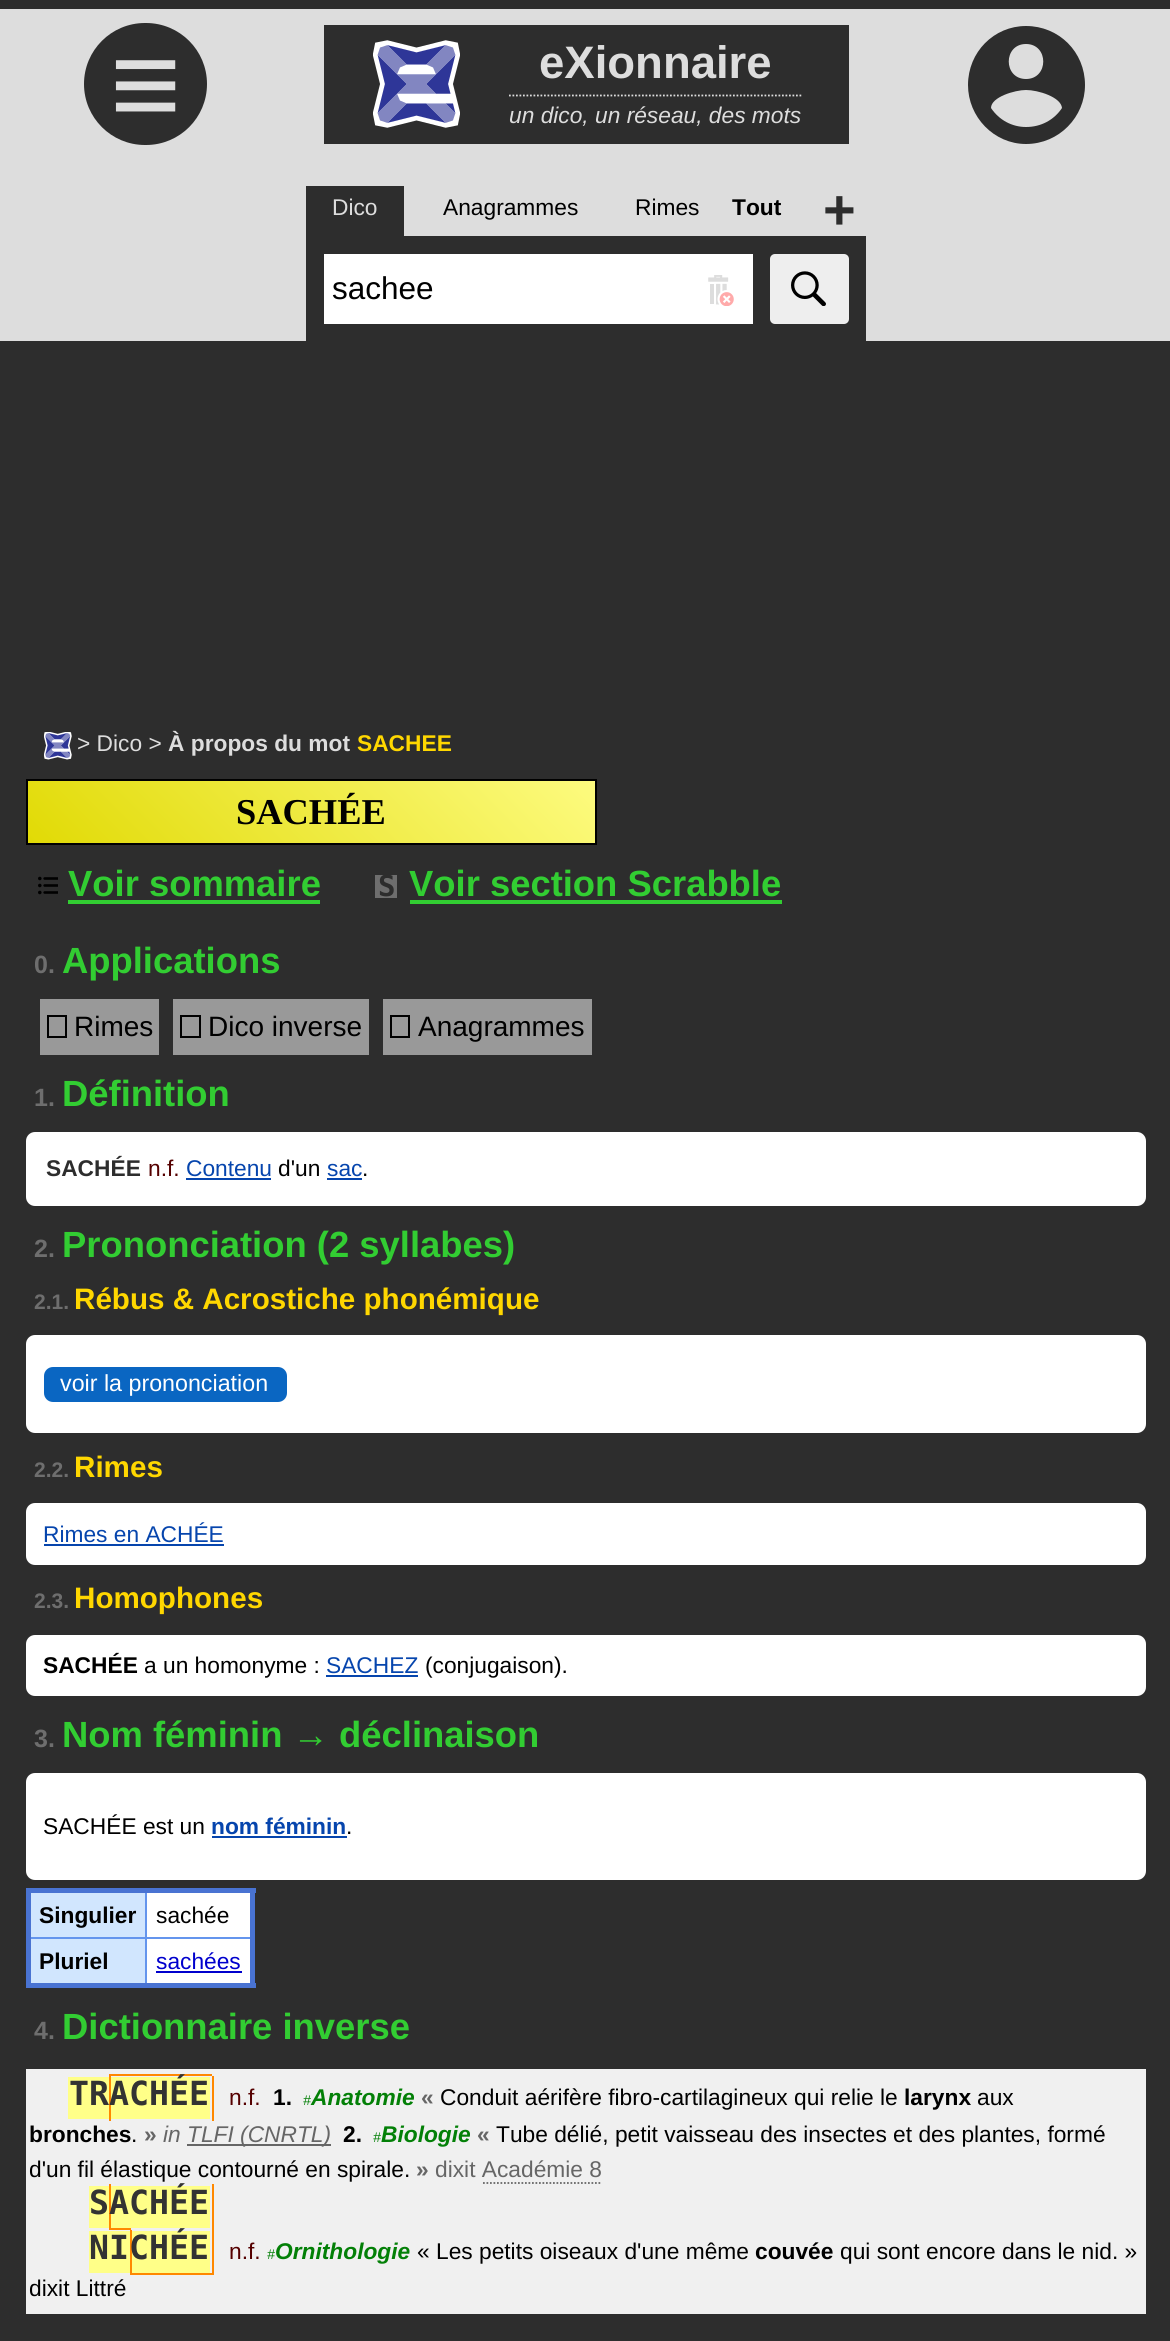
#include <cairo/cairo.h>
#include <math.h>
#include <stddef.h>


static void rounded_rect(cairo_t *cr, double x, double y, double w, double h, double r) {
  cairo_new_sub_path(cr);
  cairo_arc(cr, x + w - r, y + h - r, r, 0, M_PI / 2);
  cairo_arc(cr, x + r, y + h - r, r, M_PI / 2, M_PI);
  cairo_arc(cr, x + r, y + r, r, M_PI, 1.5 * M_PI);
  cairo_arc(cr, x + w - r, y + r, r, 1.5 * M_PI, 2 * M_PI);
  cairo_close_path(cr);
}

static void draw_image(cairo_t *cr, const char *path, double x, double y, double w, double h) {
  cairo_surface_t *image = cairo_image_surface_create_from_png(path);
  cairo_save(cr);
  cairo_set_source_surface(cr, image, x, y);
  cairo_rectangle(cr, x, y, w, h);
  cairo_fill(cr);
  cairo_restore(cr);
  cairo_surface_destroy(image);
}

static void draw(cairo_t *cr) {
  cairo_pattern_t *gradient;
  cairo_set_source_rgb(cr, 45 / 255.0, 45 / 255.0, 45 / 255.0);
  cairo_paint(cr);
  cairo_set_source_rgb(cr, 221 / 255.0, 221 / 255.0, 221 / 255.0);
  cairo_rectangle(cr, 0, 9, 1170, 332);
  cairo_fill(cr);
  cairo_set_source_rgb(cr, 45 / 255.0, 45 / 255.0, 45 / 255.0);
  rounded_rect(cr, 84, 23, 123, 122, 61);
  cairo_fill(cr);
  cairo_rectangle(cr, 324, 25, 525, 119);
  cairo_fill(cr);
  draw_image(cr, "images/1.png", 373, 40, 87, 88);
  cairo_new_path(cr);
  cairo_move_to(cr, 509, 95.5);
  cairo_line_to(cr, 801.5, 95.5);
  cairo_set_source_rgb(cr, 221 / 255.0, 221 / 255.0, 221 / 255.0);
  cairo_set_line_width(cr, 1.8);
  cairo_set_dash(cr, (double[]){1.75, 1.75}, 2, 0);
  cairo_stroke(cr);
  cairo_set_source_rgb(cr, 45 / 255.0, 45 / 255.0, 45 / 255.0);
  cairo_new_path(cr);
  cairo_move_to(cr, 1026, 26);
  cairo_curve_to(cr, 994, 26, 968, 52, 968, 85);
  cairo_curve_to(cr, 968, 117, 994, 144, 1026, 144);
  cairo_curve_to(cr, 1059, 144, 1085, 117, 1085, 85);
  cairo_curve_to(cr, 1085, 52, 1059, 26, 1026, 26);
  cairo_close_path(cr);
  cairo_move_to(cr, 1026, 44);
  cairo_curve_to(cr, 1049, 44, 1049, 79, 1026, 79);
  cairo_curve_to(cr, 1003, 79, 1003, 44, 1026, 44);
  cairo_close_path(cr);
  cairo_move_to(cr, 1026, 127);
  cairo_curve_to(cr, 1012, 127, 999, 120, 991, 108);
  cairo_curve_to(cr, 991, 97, 1015, 90, 1026, 90);
  cairo_curve_to(cr, 1038, 90, 1061, 97, 1062, 108);
  cairo_curve_to(cr, 1054, 120, 1041, 127, 1026, 127);
  cairo_close_path(cr);
  cairo_fill(cr);
  cairo_rectangle(cr, 306, 186, 98, 50);
  cairo_fill(cr);
  cairo_rectangle(cr, 306, 236, 560, 105);
  cairo_fill(cr);
  cairo_set_source_rgb(cr, 1, 1, 1);
  cairo_rectangle(cr, 324, 254, 429, 70);
  cairo_fill(cr);
  draw_image(cr, "images/2.png", 708, 275, 26, 31);
  cairo_set_source_rgb(cr, 238 / 255.0, 238 / 255.0, 238 / 255.0);
  rounded_rect(cr, 770, 254, 79, 70, 5);
  cairo_fill(cr);
  draw_image(cr, "images/3.png", 791, 271, 35, 35);
  draw_image(cr, "images/4.png", 44, 732, 28, 28);
  gradient = cairo_pattern_create_linear(154, 970, 469, 655);
  cairo_pattern_add_color_stop_rgba(gradient, 0, 225 / 255.0, 218 / 255.0, 5 / 255.0, 1);
  cairo_pattern_add_color_stop_rgba(gradient, 1, 253 / 255.0, 251 / 255.0, 127 / 255.0, 1);
  cairo_set_source(cr, gradient);
  cairo_pattern_destroy(gradient);
  cairo_rectangle(cr, 28, 781, 567, 62);
  cairo_fill(cr);
  cairo_rectangle(cr, 27, 780, 569, 64);
  cairo_set_source_rgb(cr, 0, 0, 0);
  cairo_set_line_width(cr, 2);
  cairo_set_dash(cr, NULL, 0, 0);
  cairo_stroke(cr);
  draw_image(cr, "images/5.png", 38, 876, 20, 19);
  cairo_set_source_rgb(cr, 50 / 255.0, 205 / 255.0, 50 / 255.0);
  cairo_rectangle(cr, 68, 900, 252, 4);
  cairo_fill(cr);
  cairo_set_source_rgb(cr, 110 / 255.0, 110 / 255.0, 110 / 255.0);
  cairo_rectangle(cr, 375, 875, 22, 23);
  cairo_fill(cr);
  cairo_set_source_rgb(cr, 50 / 255.0, 205 / 255.0, 50 / 255.0);
  cairo_rectangle(cr, 410, 900, 372, 4);
  cairo_fill(cr);
  cairo_set_source_rgb(cr, 153 / 255.0, 153 / 255.0, 153 / 255.0);
  cairo_rectangle(cr, 40, 999, 119, 56);
  cairo_fill(cr);
  cairo_rectangle(cr, 48, 1016, 18, 21);
  cairo_set_source_rgb(cr, 0, 0, 0);
  cairo_stroke(cr);
  cairo_set_source_rgb(cr, 153 / 255.0, 153 / 255.0, 153 / 255.0);
  cairo_rectangle(cr, 173, 999, 196, 56);
  cairo_fill(cr);
  cairo_rectangle(cr, 181, 1016, 19, 21);
  cairo_set_source_rgb(cr, 0, 0, 0);
  cairo_stroke(cr);
  cairo_set_source_rgb(cr, 153 / 255.0, 153 / 255.0, 153 / 255.0);
  cairo_rectangle(cr, 383, 999, 209, 56);
  cairo_fill(cr);
  cairo_rectangle(cr, 391, 1016, 18, 21);
  cairo_set_source_rgb(cr, 0, 0, 0);
  cairo_stroke(cr);
  cairo_set_source_rgb(cr, 1, 1, 1);
  rounded_rect(cr, 26, 1132, 1120, 74, 9);
  cairo_fill(cr);
  cairo_set_source_rgb(cr, 6 / 255.0, 69 / 255.0, 173 / 255.0);
  cairo_rectangle(cr, 186, 1178, 85, 2);
  cairo_fill(cr);
  cairo_rectangle(cr, 327, 1178, 35, 2);
  cairo_fill(cr);
  cairo_set_source_rgb(cr, 1, 1, 1);
  rounded_rect(cr, 26, 1335, 1120, 98, 9);
  cairo_fill(cr);
  cairo_set_source_rgb(cr, 10 / 255.0, 102 / 255.0, 194 / 255.0);
  rounded_rect(cr, 44, 1367, 243, 35, 9);
  cairo_fill(cr);
  cairo_set_source_rgb(cr, 1, 1, 1);
  rounded_rect(cr, 26, 1503, 1120, 62, 9);
  cairo_fill(cr);
  cairo_set_source_rgb(cr, 6 / 255.0, 69 / 255.0, 173 / 255.0);
  cairo_rectangle(cr, 44, 1544, 180, 2);
  cairo_fill(cr);
  cairo_set_source_rgb(cr, 1, 1, 1);
  rounded_rect(cr, 26, 1635, 1120, 61, 9);
  cairo_fill(cr);
  cairo_set_source_rgb(cr, 6 / 255.0, 69 / 255.0, 173 / 255.0);
  cairo_rectangle(cr, 326, 1675, 92, 2);
  cairo_fill(cr);
  cairo_set_source_rgb(cr, 1, 1, 1);
  rounded_rect(cr, 26, 1773, 1120, 107, 9);
  cairo_fill(cr);
  cairo_set_source_rgb(cr, 6 / 255.0, 69 / 255.0, 173 / 255.0);
  cairo_rectangle(cr, 212, 1836, 135, 2);
  cairo_fill(cr);
  cairo_set_source_rgb(cr, 100 / 255.0, 149 / 255.0, 237 / 255.0);
  cairo_rectangle(cr, 145, 1937, 109, 2);
  cairo_fill(cr);
  cairo_rectangle(cr, 145, 1937, 2, 49);
  cairo_fill(cr);
  cairo_rectangle(cr, 28, 1937, 119, 2);
  cairo_fill(cr);
  cairo_rectangle(cr, 145, 1890, 2, 49);
  cairo_fill(cr);
  cairo_set_source_rgb(cr, 73 / 255.0, 115 / 255.0, 210 / 255.0);
  cairo_rectangle(cr, 26, 1888, 230, 5);
  cairo_fill(cr);
  cairo_rectangle(cr, 250, 1888, 5, 100);
  cairo_fill(cr);
  cairo_rectangle(cr, 26, 1983, 230, 5);
  cairo_fill(cr);
  cairo_rectangle(cr, 26, 1888, 5, 100);
  cairo_fill(cr);
  cairo_set_source_rgb(cr, 209 / 255.0, 230 / 255.0, 254 / 255.0);
  cairo_rectangle(cr, 31, 1893, 114, 44);
  cairo_fill(cr);
  cairo_set_source_rgb(cr, 1, 1, 1);
  cairo_rectangle(cr, 147, 1893, 103, 44);
  cairo_fill(cr);
  cairo_set_source_rgb(cr, 209 / 255.0, 230 / 255.0, 254 / 255.0);
  cairo_rectangle(cr, 31, 1939, 114, 44);
  cairo_fill(cr);
  cairo_set_source_rgb(cr, 1, 1, 1);
  cairo_rectangle(cr, 147, 1939, 103, 44);
  cairo_fill(cr);
  cairo_set_source_rgb(cr, 0, 0, 205 / 255.0);
  cairo_rectangle(cr, 156, 1971, 86, 2);
  cairo_fill(cr);
  cairo_set_source_rgb(cr, 240 / 255.0, 240 / 255.0, 240 / 255.0);
  cairo_rectangle(cr, 26, 2069, 1120, 245);
  cairo_fill(cr);
  cairo_set_source_rgb(cr, 1, 1, 136 / 255.0);
  cairo_rectangle(cr, 68, 2077, 41, 42);
  cairo_fill(cr);
  cairo_rectangle(cr, 111, 2077, 99, 42);
  cairo_fill(cr);
  cairo_set_source_rgb(cr, 1, 136 / 255.0, 0);
  cairo_rectangle(cr, 109, 2074, 103, 2);
  cairo_fill(cr);
  cairo_rectangle(cr, 109, 2076, 2, 45);
  cairo_fill(cr);
  cairo_rectangle(cr, 212, 2076, 2, 45);
  cairo_fill(cr);
  cairo_set_source_rgb(cr, 102 / 255.0, 102 / 255.0, 102 / 255.0);
  cairo_rectangle(cr, 187, 2144, 144, 2);
  cairo_fill(cr);
  cairo_new_path(cr);
  cairo_move_to(cr, 483, 2183);
  cairo_line_to(cr, 602, 2183);
  cairo_set_line_width(cr, 1.8);
  cairo_set_dash(cr, (double[]){1.75, 1.75}, 2, 0);
  cairo_stroke(cr);
  cairo_set_source_rgb(cr, 1, 1, 136 / 255.0);
  cairo_rectangle(cr, 89, 2186, 20, 42);
  cairo_fill(cr);
  cairo_rectangle(cr, 111, 2186, 99, 42);
  cairo_fill(cr);
  cairo_set_source_rgb(cr, 1, 136 / 255.0, 0);
  cairo_rectangle(cr, 109, 2228, 22, 2);
  cairo_fill(cr);
  cairo_rectangle(cr, 109, 2184, 2, 46);
  cairo_fill(cr);
  cairo_rectangle(cr, 212, 2184, 2, 91);
  cairo_fill(cr);
  cairo_set_source_rgb(cr, 1, 1, 136 / 255.0);
  cairo_rectangle(cr, 89, 2231, 41, 42);
  cairo_fill(cr);
  cairo_rectangle(cr, 132, 2231, 78, 42);
  cairo_fill(cr);
  cairo_set_source_rgb(cr, 1, 136 / 255.0, 0);
  cairo_rectangle(cr, 130, 2273, 82, 2);
  cairo_fill(cr);
  cairo_rectangle(cr, 130, 2230, 2, 45);
  cairo_fill(cr);
  cairo_select_font_face(cr, "Liberation Sans", CAIRO_FONT_SLANT_NORMAL, CAIRO_FONT_WEIGHT_NORMAL);
  cairo_set_font_size(cr, 122);
  cairo_set_source_rgb(cr, 221 / 255.0, 221 / 255.0, 221 / 255.0);
  cairo_move_to(cr, 110, 126);
  cairo_show_text(cr, "≡");
  cairo_select_font_face(cr, "Liberation Sans", CAIRO_FONT_SLANT_NORMAL, CAIRO_FONT_WEIGHT_BOLD);
  cairo_set_font_size(cr, 45.5);
  cairo_move_to(cr, 539, 78);
  cairo_show_text(cr, "eXionnaire");
  cairo_select_font_face(cr, "Liberation Sans", CAIRO_FONT_SLANT_ITALIC, CAIRO_FONT_WEIGHT_NORMAL);
  cairo_set_font_size(cr, 22.75);
  cairo_move_to(cr, 509, 123);
  cairo_show_text(cr, "un dico, un réseau, des mots");
  cairo_select_font_face(cr, "Liberation Sans", CAIRO_FONT_SLANT_NORMAL, CAIRO_FONT_WEIGHT_NORMAL);
  cairo_move_to(cr, 332, 215);
  cairo_show_text(cr, "Dico");
  cairo_set_source_rgb(cr, 0, 0, 0);
  cairo_move_to(cr, 443, 215);
  cairo_show_text(cr, "Anagrammes");
  cairo_move_to(cr, 635, 215);
  cairo_show_text(cr, "Rimes");
  cairo_select_font_face(cr, "Liberation Sans", CAIRO_FONT_SLANT_NORMAL, CAIRO_FONT_WEIGHT_BOLD);
  cairo_move_to(cr, 732, 215);
  cairo_show_text(cr, "Tout");
  cairo_set_font_size(cr, 56);
  cairo_set_source_rgb(cr, 45 / 255.0, 45 / 255.0, 45 / 255.0);
  cairo_move_to(cr, 823, 229);
  cairo_show_text(cr, "+");
  cairo_select_font_face(cr, "Liberation Sans", CAIRO_FONT_SLANT_NORMAL, CAIRO_FONT_WEIGHT_NORMAL);
  cairo_set_font_size(cr, 31.5);
  cairo_set_source_rgb(cr, 0, 0, 0);
  cairo_move_to(cr, 332, 299);
  cairo_show_text(cr, "sachee");
  cairo_set_font_size(cr, 22.75);
  cairo_set_source_rgb(cr, 221 / 255.0, 221 / 255.0, 221 / 255.0);
  cairo_move_to(cr, 77, 751);
  cairo_show_text(cr, "> Dico >");
  cairo_select_font_face(cr, "Liberation Sans", CAIRO_FONT_SLANT_NORMAL, CAIRO_FONT_WEIGHT_BOLD);
  cairo_move_to(cr, 168, 751);
  cairo_show_text(cr, "À propos du mot");
  cairo_set_source_rgb(cr, 1, 215 / 255.0, 0);
  cairo_move_to(cr, 357, 751);
  cairo_show_text(cr, "SACHEE");
  cairo_select_font_face(cr, "Liberation Serif", CAIRO_FONT_SLANT_NORMAL, CAIRO_FONT_WEIGHT_BOLD);
  cairo_set_font_size(cr, 36.4);
  cairo_set_source_rgb(cr, 0, 0, 0);
  cairo_move_to(cr, 236, 824);
  cairo_show_text(cr, "SACHÉE");
  cairo_select_font_face(cr, "Liberation Sans", CAIRO_FONT_SLANT_NORMAL, CAIRO_FONT_WEIGHT_BOLD);
  cairo_set_source_rgb(cr, 50 / 255.0, 205 / 255.0, 50 / 255.0);
  cairo_move_to(cr, 68, 896);
  cairo_show_text(cr, "Voir sommaire");
  cairo_select_font_face(cr, "DejaVu Sans Mono", CAIRO_FONT_SLANT_NORMAL, CAIRO_FONT_WEIGHT_BOLD);
  cairo_set_font_size(cr, 29);
  cairo_set_source_rgb(cr, 45 / 255.0, 45 / 255.0, 45 / 255.0);
  cairo_move_to(cr, 378, 896);
  cairo_show_text(cr, "S");
  cairo_select_font_face(cr, "Liberation Sans", CAIRO_FONT_SLANT_NORMAL, CAIRO_FONT_WEIGHT_BOLD);
  cairo_set_font_size(cr, 36.4);
  cairo_set_source_rgb(cr, 50 / 255.0, 205 / 255.0, 50 / 255.0);
  cairo_move_to(cr, 409, 896);
  cairo_show_text(cr, "Voir section Scrabble");
  cairo_set_font_size(cr, 25);
  cairo_set_source_rgb(cr, 110 / 255.0, 110 / 255.0, 110 / 255.0);
  cairo_move_to(cr, 34, 973);
  cairo_show_text(cr, "0.");
  cairo_set_font_size(cr, 36.4);
  cairo_set_source_rgb(cr, 50 / 255.0, 205 / 255.0, 50 / 255.0);
  cairo_move_to(cr, 62, 973);
  cairo_show_text(cr, "Applications");
  cairo_select_font_face(cr, "Liberation Sans", CAIRO_FONT_SLANT_NORMAL, CAIRO_FONT_WEIGHT_NORMAL);
  cairo_set_font_size(cr, 28);
  cairo_set_source_rgb(cr, 0, 0, 0);
  cairo_move_to(cr, 74, 1036);
  cairo_show_text(cr, "Rimes");
  cairo_move_to(cr, 208, 1036);
  cairo_show_text(cr, "Dico inverse");
  cairo_move_to(cr, 418, 1036);
  cairo_show_text(cr, "Anagrammes");
  cairo_select_font_face(cr, "Liberation Sans", CAIRO_FONT_SLANT_NORMAL, CAIRO_FONT_WEIGHT_BOLD);
  cairo_set_font_size(cr, 25);
  cairo_set_source_rgb(cr, 110 / 255.0, 110 / 255.0, 110 / 255.0);
  cairo_move_to(cr, 34, 1106);
  cairo_show_text(cr, "1.");
  cairo_set_font_size(cr, 36.4);
  cairo_set_source_rgb(cr, 50 / 255.0, 205 / 255.0, 50 / 255.0);
  cairo_move_to(cr, 62, 1106);
  cairo_show_text(cr, "Définition");
  cairo_set_font_size(cr, 22.75);
  cairo_set_source_rgb(cr, 45 / 255.0, 45 / 255.0, 45 / 255.0);
  cairo_move_to(cr, 46, 1176);
  cairo_show_text(cr, "SACHÉE");
  cairo_select_font_face(cr, "Liberation Sans", CAIRO_FONT_SLANT_NORMAL, CAIRO_FONT_WEIGHT_NORMAL);
  cairo_set_source_rgb(cr, 85 / 255.0, 0, 0);
  cairo_move_to(cr, 148, 1176);
  cairo_show_text(cr, "n.f.");
  cairo_set_source_rgb(cr, 6 / 255.0, 69 / 255.0, 173 / 255.0);
  cairo_move_to(cr, 186, 1176);
  cairo_show_text(cr, "Contenu");
  cairo_set_source_rgb(cr, 0, 0, 0);
  cairo_move_to(cr, 278, 1176);
  cairo_show_text(cr, "d'un");
  cairo_set_source_rgb(cr, 6 / 255.0, 69 / 255.0, 173 / 255.0);
  cairo_move_to(cr, 327, 1176);
  cairo_show_text(cr, "sac");
  cairo_set_source_rgb(cr, 0, 0, 0);
  cairo_move_to(cr, 362, 1176);
  cairo_show_text(cr, ".");
  cairo_select_font_face(cr, "Liberation Sans", CAIRO_FONT_SLANT_NORMAL, CAIRO_FONT_WEIGHT_BOLD);
  cairo_set_font_size(cr, 25);
  cairo_set_source_rgb(cr, 110 / 255.0, 110 / 255.0, 110 / 255.0);
  cairo_move_to(cr, 34, 1257);
  cairo_show_text(cr, "2.");
  cairo_set_font_size(cr, 36.4);
  cairo_set_source_rgb(cr, 50 / 255.0, 205 / 255.0, 50 / 255.0);
  cairo_move_to(cr, 62, 1257);
  cairo_show_text(cr, "Prononciation (2 syllabes)");
  cairo_set_font_size(cr, 21);
  cairo_set_source_rgb(cr, 110 / 255.0, 110 / 255.0, 110 / 255.0);
  cairo_move_to(cr, 34, 1309);
  cairo_show_text(cr, "2.1.");
  cairo_set_font_size(cr, 29.6);
  cairo_set_source_rgb(cr, 1, 215 / 255.0, 0);
  cairo_move_to(cr, 74, 1309);
  cairo_show_text(cr, "Rébus & Acrostiche phonémique");
  cairo_select_font_face(cr, "Liberation Sans", CAIRO_FONT_SLANT_NORMAL, CAIRO_FONT_WEIGHT_NORMAL);
  cairo_set_font_size(cr, 23.25);
  cairo_set_source_rgb(cr, 1, 1, 1);
  cairo_move_to(cr, 60, 1391);
  cairo_show_text(cr, "voir la prononciation");
  cairo_select_font_face(cr, "Liberation Sans", CAIRO_FONT_SLANT_NORMAL, CAIRO_FONT_WEIGHT_BOLD);
  cairo_set_font_size(cr, 21);
  cairo_set_source_rgb(cr, 110 / 255.0, 110 / 255.0, 110 / 255.0);
  cairo_move_to(cr, 34, 1477);
  cairo_show_text(cr, "2.2.");
  cairo_set_font_size(cr, 29.6);
  cairo_set_source_rgb(cr, 1, 215 / 255.0, 0);
  cairo_move_to(cr, 74, 1477);
  cairo_show_text(cr, "Rimes");
  cairo_select_font_face(cr, "Liberation Sans", CAIRO_FONT_SLANT_NORMAL, CAIRO_FONT_WEIGHT_NORMAL);
  cairo_set_font_size(cr, 22.75);
  cairo_set_source_rgb(cr, 6 / 255.0, 69 / 255.0, 173 / 255.0);
  cairo_move_to(cr, 43, 1542);
  cairo_show_text(cr, "Rimes en ACHÉE");
  cairo_select_font_face(cr, "Liberation Sans", CAIRO_FONT_SLANT_NORMAL, CAIRO_FONT_WEIGHT_BOLD);
  cairo_set_font_size(cr, 21);
  cairo_set_source_rgb(cr, 110 / 255.0, 110 / 255.0, 110 / 255.0);
  cairo_move_to(cr, 34, 1608);
  cairo_show_text(cr, "2.3.");
  cairo_set_font_size(cr, 29.6);
  cairo_set_source_rgb(cr, 1, 215 / 255.0, 0);
  cairo_move_to(cr, 74, 1608);
  cairo_show_text(cr, "Homophones");
  cairo_set_font_size(cr, 22.75);
  cairo_set_source_rgb(cr, 0, 0, 0);
  cairo_move_to(cr, 43, 1673);
  cairo_show_text(cr, "SACHÉE");
  cairo_select_font_face(cr, "Liberation Sans", CAIRO_FONT_SLANT_NORMAL, CAIRO_FONT_WEIGHT_NORMAL);
  cairo_move_to(cr, 144, 1673);
  cairo_show_text(cr, "a un homonyme :");
  cairo_set_source_rgb(cr, 6 / 255.0, 69 / 255.0, 173 / 255.0);
  cairo_move_to(cr, 326, 1673);
  cairo_show_text(cr, "SACHEZ");
  cairo_set_source_rgb(cr, 0, 0, 0);
  cairo_move_to(cr, 425, 1673);
  cairo_show_text(cr, "(conjugaison).");
  cairo_select_font_face(cr, "Liberation Sans", CAIRO_FONT_SLANT_NORMAL, CAIRO_FONT_WEIGHT_BOLD);
  cairo_set_font_size(cr, 25);
  cairo_set_source_rgb(cr, 110 / 255.0, 110 / 255.0, 110 / 255.0);
  cairo_move_to(cr, 34, 1747);
  cairo_show_text(cr, "3.");
  cairo_set_font_size(cr, 36.4);
  cairo_set_source_rgb(cr, 50 / 255.0, 205 / 255.0, 50 / 255.0);
  cairo_move_to(cr, 62, 1747);
  cairo_show_text(cr, "Nom féminin → déclinaison");
  cairo_select_font_face(cr, "Liberation Sans", CAIRO_FONT_SLANT_NORMAL, CAIRO_FONT_WEIGHT_NORMAL);
  cairo_set_font_size(cr, 22.75);
  cairo_set_source_rgb(cr, 0, 0, 0);
  cairo_move_to(cr, 43, 1834);
  cairo_show_text(cr, "SACHÉE est un");
  cairo_select_font_face(cr, "Liberation Sans", CAIRO_FONT_SLANT_NORMAL, CAIRO_FONT_WEIGHT_BOLD);
  cairo_set_source_rgb(cr, 6 / 255.0, 69 / 255.0, 173 / 255.0);
  cairo_move_to(cr, 211, 1834);
  cairo_show_text(cr, "nom féminin");
  cairo_select_font_face(cr, "Liberation Sans", CAIRO_FONT_SLANT_NORMAL, CAIRO_FONT_WEIGHT_NORMAL);
  cairo_set_source_rgb(cr, 0, 0, 0);
  cairo_move_to(cr, 346, 1834);
  cairo_show_text(cr, ".");
  cairo_select_font_face(cr, "Liberation Sans", CAIRO_FONT_SLANT_NORMAL, CAIRO_FONT_WEIGHT_BOLD);
  cairo_move_to(cr, 39, 1923);
  cairo_show_text(cr, "Singulier");
  cairo_select_font_face(cr, "Liberation Sans", CAIRO_FONT_SLANT_NORMAL, CAIRO_FONT_WEIGHT_NORMAL);
  cairo_move_to(cr, 156, 1923);
  cairo_show_text(cr, "sachée");
  cairo_select_font_face(cr, "Liberation Sans", CAIRO_FONT_SLANT_NORMAL, CAIRO_FONT_WEIGHT_BOLD);
  cairo_move_to(cr, 39, 1969);
  cairo_show_text(cr, "Pluriel");
  cairo_select_font_face(cr, "Liberation Sans", CAIRO_FONT_SLANT_NORMAL, CAIRO_FONT_WEIGHT_NORMAL);
  cairo_set_source_rgb(cr, 0, 0, 205 / 255.0);
  cairo_move_to(cr, 156, 1969);
  cairo_show_text(cr, "sachées");
  cairo_select_font_face(cr, "Liberation Sans", CAIRO_FONT_SLANT_NORMAL, CAIRO_FONT_WEIGHT_BOLD);
  cairo_set_font_size(cr, 25);
  cairo_set_source_rgb(cr, 110 / 255.0, 110 / 255.0, 110 / 255.0);
  cairo_move_to(cr, 34, 2039);
  cairo_show_text(cr, "4.");
  cairo_set_font_size(cr, 36.4);
  cairo_set_source_rgb(cr, 50 / 255.0, 205 / 255.0, 50 / 255.0);
  cairo_move_to(cr, 62, 2039);
  cairo_show_text(cr, "Dictionnaire inverse");
  cairo_select_font_face(cr, "DejaVu Sans Mono", CAIRO_FONT_SLANT_NORMAL, CAIRO_FONT_WEIGHT_BOLD);
  cairo_set_font_size(cr, 33.25);
  cairo_set_source_rgb(cr, 51 / 255.0, 51 / 255.0, 51 / 255.0);
  cairo_move_to(cr, 69, 2105);
  cairo_show_text(cr, "TRACHÉE");
  cairo_select_font_face(cr, "Liberation Sans", CAIRO_FONT_SLANT_NORMAL, CAIRO_FONT_WEIGHT_NORMAL);
  cairo_set_font_size(cr, 22.75);
  cairo_set_source_rgb(cr, 85 / 255.0, 0, 0);
  cairo_move_to(cr, 229, 2105);
  cairo_show_text(cr, "n.f.");
  cairo_select_font_face(cr, "Liberation Sans", CAIRO_FONT_SLANT_NORMAL, CAIRO_FONT_WEIGHT_BOLD);
  cairo_set_source_rgb(cr, 0, 0, 0);
  cairo_move_to(cr, 273, 2105);
  cairo_show_text(cr, "1.");
  cairo_select_font_face(cr, "Liberation Sans", CAIRO_FONT_SLANT_ITALIC, CAIRO_FONT_WEIGHT_NORMAL);
  cairo_set_font_size(cr, 14);
  cairo_set_source_rgb(cr, 3 / 255.0, 128 / 255.0, 7 / 255.0);
  cairo_move_to(cr, 303, 2105);
  cairo_show_text(cr, "#");
  cairo_select_font_face(cr, "Liberation Sans", CAIRO_FONT_SLANT_ITALIC, CAIRO_FONT_WEIGHT_BOLD);
  cairo_set_font_size(cr, 22.75);
  cairo_move_to(cr, 311, 2105);
  cairo_show_text(cr, "Anatomie");
  cairo_select_font_face(cr, "Liberation Sans", CAIRO_FONT_SLANT_NORMAL, CAIRO_FONT_WEIGHT_BOLD);
  cairo_set_source_rgb(cr, 102 / 255.0, 102 / 255.0, 102 / 255.0);
  cairo_move_to(cr, 421, 2105);
  cairo_show_text(cr, "«");
  cairo_select_font_face(cr, "Liberation Sans", CAIRO_FONT_SLANT_NORMAL, CAIRO_FONT_WEIGHT_NORMAL);
  cairo_set_source_rgb(cr, 0, 0, 0);
  cairo_move_to(cr, 440, 2105);
  cairo_show_text(cr, "Conduit aérifère fibro-cartilagineux qui relie le");
  cairo_select_font_face(cr, "Liberation Sans", CAIRO_FONT_SLANT_NORMAL, CAIRO_FONT_WEIGHT_BOLD);
  cairo_move_to(cr, 904, 2105);
  cairo_show_text(cr, "larynx");
  cairo_select_font_face(cr, "Liberation Sans", CAIRO_FONT_SLANT_NORMAL, CAIRO_FONT_WEIGHT_NORMAL);
  cairo_move_to(cr, 977, 2105);
  cairo_show_text(cr, "aux");
  cairo_select_font_face(cr, "Liberation Sans", CAIRO_FONT_SLANT_NORMAL, CAIRO_FONT_WEIGHT_BOLD);
  cairo_move_to(cr, 29, 2142);
  cairo_show_text(cr, "bronches");
  cairo_select_font_face(cr, "Liberation Sans", CAIRO_FONT_SLANT_NORMAL, CAIRO_FONT_WEIGHT_NORMAL);
  cairo_move_to(cr, 131, 2142);
  cairo_show_text(cr, ".");
  cairo_select_font_face(cr, "Liberation Sans", CAIRO_FONT_SLANT_NORMAL, CAIRO_FONT_WEIGHT_BOLD);
  cairo_set_source_rgb(cr, 102 / 255.0, 102 / 255.0, 102 / 255.0);
  cairo_move_to(cr, 144, 2142);
  cairo_show_text(cr, "»");
  cairo_select_font_face(cr, "Liberation Sans", CAIRO_FONT_SLANT_ITALIC, CAIRO_FONT_WEIGHT_NORMAL);
  cairo_move_to(cr, 163, 2142);
  cairo_show_text(cr, "in");
  cairo_move_to(cr, 187, 2142);
  cairo_show_text(cr, "TLFI (CNRTL)");
  cairo_select_font_face(cr, "Liberation Sans", CAIRO_FONT_SLANT_NORMAL, CAIRO_FONT_WEIGHT_BOLD);
  cairo_set_source_rgb(cr, 0, 0, 0);
  cairo_move_to(cr, 343, 2142);
  cairo_show_text(cr, "2.");
  cairo_select_font_face(cr, "Liberation Sans", CAIRO_FONT_SLANT_ITALIC, CAIRO_FONT_WEIGHT_NORMAL);
  cairo_set_font_size(cr, 14);
  cairo_set_source_rgb(cr, 3 / 255.0, 128 / 255.0, 7 / 255.0);
  cairo_move_to(cr, 373, 2142);
  cairo_show_text(cr, "#");
  cairo_select_font_face(cr, "Liberation Sans", CAIRO_FONT_SLANT_ITALIC, CAIRO_FONT_WEIGHT_BOLD);
  cairo_set_font_size(cr, 22.75);
  cairo_move_to(cr, 381, 2142);
  cairo_show_text(cr, "Biologie");
  cairo_select_font_face(cr, "Liberation Sans", CAIRO_FONT_SLANT_NORMAL, CAIRO_FONT_WEIGHT_BOLD);
  cairo_set_source_rgb(cr, 102 / 255.0, 102 / 255.0, 102 / 255.0);
  cairo_move_to(cr, 477, 2142);
  cairo_show_text(cr, "«");
  cairo_select_font_face(cr, "Liberation Sans", CAIRO_FONT_SLANT_NORMAL, CAIRO_FONT_WEIGHT_NORMAL);
  cairo_set_source_rgb(cr, 0, 0, 0);
  cairo_move_to(cr, 496, 2142);
  cairo_show_text(cr, "Tube délié, petit vaisseau des insectes et des plantes, formé");
  cairo_move_to(cr, 29, 2177);
  cairo_show_text(cr, "d'un fil élastique contourné en spirale.");
  cairo_select_font_face(cr, "Liberation Sans", CAIRO_FONT_SLANT_NORMAL, CAIRO_FONT_WEIGHT_BOLD);
  cairo_set_source_rgb(cr, 102 / 255.0, 102 / 255.0, 102 / 255.0);
  cairo_move_to(cr, 416, 2177);
  cairo_show_text(cr, "»");
  cairo_select_font_face(cr, "Liberation Sans", CAIRO_FONT_SLANT_NORMAL, CAIRO_FONT_WEIGHT_NORMAL);
  cairo_move_to(cr, 435, 2177);
  cairo_show_text(cr, "dixit Académie 8");
  cairo_select_font_face(cr, "DejaVu Sans Mono", CAIRO_FONT_SLANT_NORMAL, CAIRO_FONT_WEIGHT_BOLD);
  cairo_set_font_size(cr, 33.25);
  cairo_set_source_rgb(cr, 51 / 255.0, 51 / 255.0, 51 / 255.0);
  cairo_move_to(cr, 89, 2214);
  cairo_show_text(cr, "SACHÉE");
  cairo_move_to(cr, 89, 2259);
  cairo_show_text(cr, "NICHÉE");
  cairo_select_font_face(cr, "Liberation Sans", CAIRO_FONT_SLANT_NORMAL, CAIRO_FONT_WEIGHT_NORMAL);
  cairo_set_font_size(cr, 22.75);
  cairo_set_source_rgb(cr, 85 / 255.0, 0, 0);
  cairo_move_to(cr, 229, 2259);
  cairo_show_text(cr, "n.f.");
  cairo_select_font_face(cr, "Liberation Sans", CAIRO_FONT_SLANT_ITALIC, CAIRO_FONT_WEIGHT_NORMAL);
  cairo_set_font_size(cr, 14);
  cairo_set_source_rgb(cr, 3 / 255.0, 128 / 255.0, 7 / 255.0);
  cairo_move_to(cr, 267, 2259);
  cairo_show_text(cr, "#");
  cairo_select_font_face(cr, "Liberation Sans", CAIRO_FONT_SLANT_ITALIC, CAIRO_FONT_WEIGHT_BOLD);
  cairo_set_font_size(cr, 22.75);
  cairo_move_to(cr, 275, 2259);
  cairo_show_text(cr, "Ornithologie");
  cairo_select_font_face(cr, "Liberation Sans", CAIRO_FONT_SLANT_NORMAL, CAIRO_FONT_WEIGHT_NORMAL);
  cairo_set_source_rgb(cr, 0, 0, 0);
  cairo_move_to(cr, 417, 2259);
  cairo_show_text(cr, "« Les petits oiseaux d'une même");
  cairo_select_font_face(cr, "Liberation Sans", CAIRO_FONT_SLANT_NORMAL, CAIRO_FONT_WEIGHT_BOLD);
  cairo_move_to(cr, 755, 2259);
  cairo_show_text(cr, "couvée");
  cairo_select_font_face(cr, "Liberation Sans", CAIRO_FONT_SLANT_NORMAL, CAIRO_FONT_WEIGHT_NORMAL);
  cairo_move_to(cr, 840, 2259);
  cairo_show_text(cr, "qui sont encore dans le nid. »");
  cairo_move_to(cr, 29, 2296);
  cairo_show_text(cr, "dixit Littré");
}

int main(void) {
  cairo_surface_t *surface = cairo_image_surface_create(CAIRO_FORMAT_RGB24, 1170, 2341);
  cairo_t *cr = cairo_create(surface);
  cairo_font_options_t *options = cairo_font_options_create();
  cairo_font_options_set_hint_metrics(options, CAIRO_HINT_METRICS_OFF);
  cairo_font_options_set_hint_style(options, CAIRO_HINT_STYLE_NONE);
  cairo_set_font_options(cr, options);
  cairo_set_miter_limit(cr, 4);
  draw(cr);
  cairo_surface_write_to_png(surface, "out.png");
  cairo_font_options_destroy(options);
  cairo_destroy(cr);
  cairo_surface_destroy(surface);
  return 0;
}
